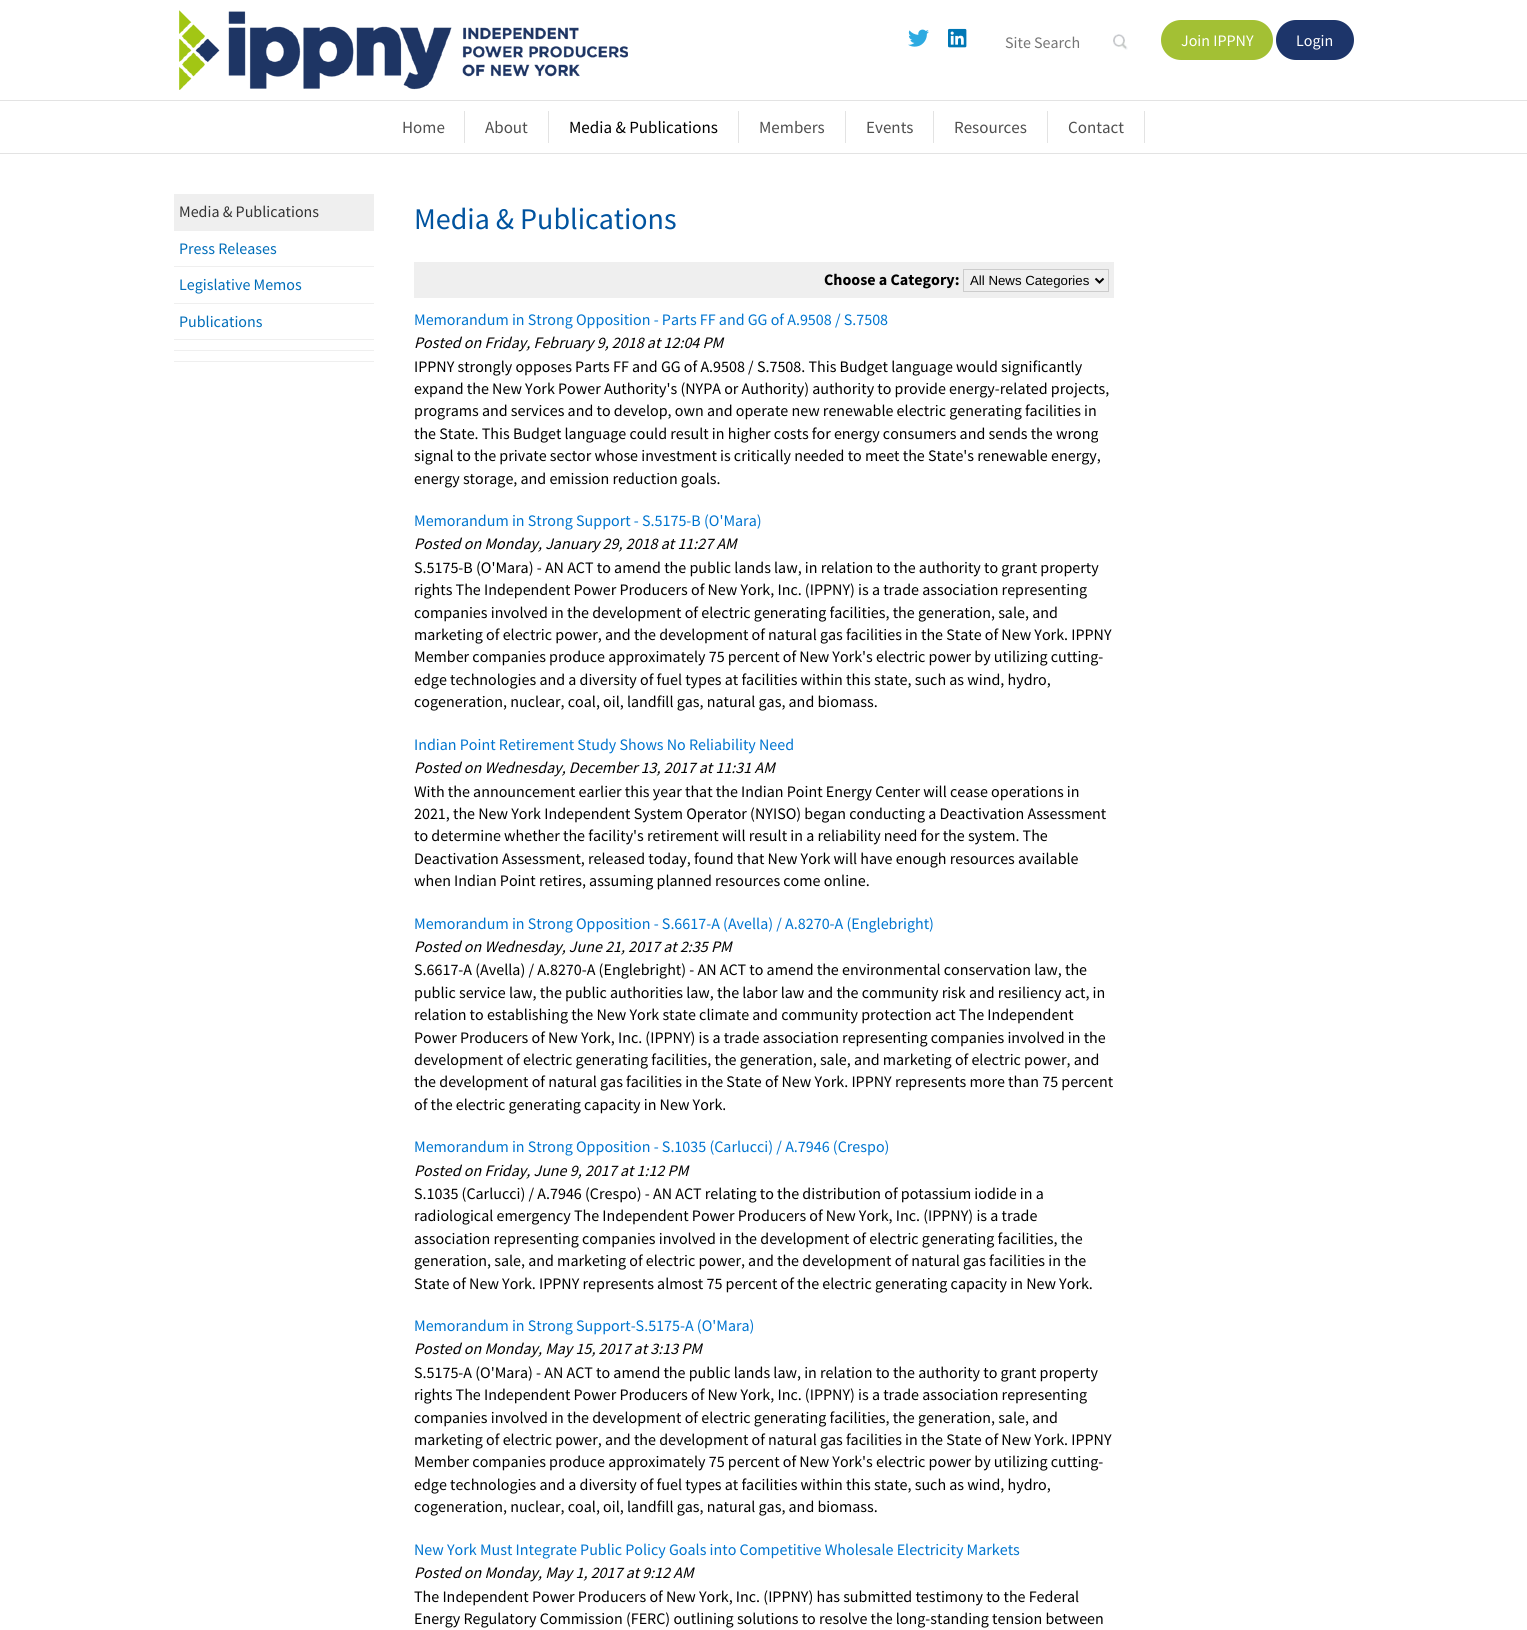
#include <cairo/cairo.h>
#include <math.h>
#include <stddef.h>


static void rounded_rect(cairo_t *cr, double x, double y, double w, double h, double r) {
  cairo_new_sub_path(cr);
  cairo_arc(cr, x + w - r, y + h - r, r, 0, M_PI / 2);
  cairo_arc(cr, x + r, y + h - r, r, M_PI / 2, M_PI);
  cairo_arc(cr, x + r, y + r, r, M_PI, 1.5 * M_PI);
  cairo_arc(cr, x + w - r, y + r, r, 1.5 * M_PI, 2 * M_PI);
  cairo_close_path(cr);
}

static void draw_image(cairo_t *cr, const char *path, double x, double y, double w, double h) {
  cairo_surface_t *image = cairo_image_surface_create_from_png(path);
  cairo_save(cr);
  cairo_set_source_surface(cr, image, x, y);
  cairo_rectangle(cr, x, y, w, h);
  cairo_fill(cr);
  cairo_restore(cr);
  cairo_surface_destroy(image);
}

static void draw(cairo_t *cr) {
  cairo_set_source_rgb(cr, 1, 1, 1);
  cairo_paint(cr);
  draw_image(cr, "images/1.png", 179, 10, 449, 80);
  draw_image(cr, "images/2.png", 908, 29, 21, 18);
  draw_image(cr, "images/3.png", 948, 28, 19, 20);
  draw_image(cr, "images/4.png", 1113, 34, 15, 16);
  cairo_set_source_rgb(cr, 163 / 255.0, 192 / 255.0, 52 / 255.0);
  rounded_rect(cr, 1161, 20, 112, 40, 20);
  cairo_fill(cr);
  cairo_set_source_rgb(cr, 29 / 255.0, 53 / 255.0, 106 / 255.0);
  rounded_rect(cr, 1276, 20, 78, 40, 20);
  cairo_fill(cr);
  cairo_set_source_rgb(cr, 227 / 255.0, 227 / 255.0, 227 / 255.0);
  cairo_rectangle(cr, 0, 100, 1527, 1);
  cairo_fill(cr);
  cairo_rectangle(cr, 0, 153, 1527, 1);
  cairo_fill(cr);
  cairo_rectangle(cr, 464, 111, 1, 32);
  cairo_fill(cr);
  cairo_rectangle(cr, 548, 111, 1, 32);
  cairo_fill(cr);
  cairo_rectangle(cr, 738, 111, 1, 32);
  cairo_fill(cr);
  cairo_rectangle(cr, 845, 111, 1, 32);
  cairo_fill(cr);
  cairo_rectangle(cr, 933, 111, 1, 32);
  cairo_fill(cr);
  cairo_rectangle(cr, 1047, 111, 1, 32);
  cairo_fill(cr);
  cairo_rectangle(cr, 1144, 111, 1, 32);
  cairo_fill(cr);
  cairo_set_source_rgb(cr, 239 / 255.0, 239 / 255.0, 239 / 255.0);
  cairo_rectangle(cr, 174, 194, 200, 37);
  cairo_fill(cr);
  cairo_rectangle(cr, 174, 266, 200, 1);
  cairo_fill(cr);
  cairo_rectangle(cr, 174, 303, 200, 1);
  cairo_fill(cr);
  cairo_rectangle(cr, 174, 339, 200, 1);
  cairo_fill(cr);
  cairo_rectangle(cr, 174, 350, 200, 1);
  cairo_fill(cr);
  cairo_rectangle(cr, 174, 361, 200, 1);
  cairo_fill(cr);
  cairo_rectangle(cr, 414, 262, 700, 36);
  cairo_fill(cr);
  cairo_rectangle(cr, 963.5, 269.5, 145, 22);
  cairo_set_source_rgb(cr, 204 / 255.0, 204 / 255.0, 204 / 255.0);
  cairo_set_line_width(cr, 1);
  cairo_stroke(cr);
  cairo_new_path(cr);
  cairo_move_to(cr, 1095.5, 278.5);
  cairo_line_to(cr, 1099.5, 282.5);
  cairo_line_to(cr, 1103.5, 278.5);
  cairo_set_source_rgb(cr, 0, 0, 0);
  cairo_set_line_width(cr, 2);
  cairo_stroke(cr);
  cairo_select_font_face(cr, "Source Sans Pro", CAIRO_FONT_SLANT_NORMAL, CAIRO_FONT_WEIGHT_NORMAL);
  cairo_set_font_size(cr, 16);
  cairo_set_source_rgb(cr, 117 / 255.0, 117 / 255.0, 117 / 255.0);
  cairo_move_to(cr, 1005, 48);
  cairo_show_text(cr, "Site Search");
  cairo_set_source_rgb(cr, 1, 1, 1);
  cairo_move_to(cr, 1181, 46);
  cairo_show_text(cr, "Join IPPNY");
  cairo_move_to(cr, 1296, 46);
  cairo_show_text(cr, "Login");
  cairo_set_font_size(cr, 17);
  cairo_set_source_rgb(cr, 79 / 255.0, 79 / 255.0, 79 / 255.0);
  cairo_move_to(cr, 402, 133);
  cairo_show_text(cr, "Home");
  cairo_move_to(cr, 485, 133);
  cairo_show_text(cr, "About");
  cairo_set_source_rgb(cr, 0, 0, 0);
  cairo_move_to(cr, 569, 133);
  cairo_show_text(cr, "Media & Publications");
  cairo_set_source_rgb(cr, 79 / 255.0, 79 / 255.0, 79 / 255.0);
  cairo_move_to(cr, 759, 133);
  cairo_show_text(cr, "Members");
  cairo_move_to(cr, 866, 133);
  cairo_show_text(cr, "Events");
  cairo_move_to(cr, 954, 133);
  cairo_show_text(cr, "Resources");
  cairo_move_to(cr, 1068, 133);
  cairo_show_text(cr, "Contact");
  cairo_set_font_size(cr, 16);
  cairo_set_source_rgb(cr, 51 / 255.0, 51 / 255.0, 51 / 255.0);
  cairo_move_to(cr, 179, 217);
  cairo_show_text(cr, "Media & Publications");
  cairo_set_source_rgb(cr, 0, 109 / 255.0, 185 / 255.0);
  cairo_move_to(cr, 179, 254);
  cairo_show_text(cr, "Press Releases");
  cairo_move_to(cr, 179, 290);
  cairo_show_text(cr, "Legislative Memos");
  cairo_move_to(cr, 179, 327);
  cairo_show_text(cr, "Publications");
  cairo_set_font_size(cr, 30);
  cairo_set_source_rgb(cr, 0, 83 / 255.0, 159 / 255.0);
  cairo_move_to(cr, 414, 229);
  cairo_show_text(cr, "Media & Publications");
  cairo_select_font_face(cr, "Source Sans Pro", CAIRO_FONT_SLANT_NORMAL, CAIRO_FONT_WEIGHT_BOLD);
  cairo_set_font_size(cr, 16);
  cairo_set_source_rgb(cr, 0, 0, 0);
  cairo_move_to(cr, 824, 285);
  cairo_show_text(cr, "Choose a Category:");
  cairo_select_font_face(cr, "Liberation Sans", CAIRO_FONT_SLANT_NORMAL, CAIRO_FONT_WEIGHT_NORMAL);
  cairo_set_font_size(cr, 13.25);
  cairo_move_to(cr, 970, 285);
  cairo_show_text(cr, "All News Categories");
  cairo_select_font_face(cr, "Source Sans Pro", CAIRO_FONT_SLANT_NORMAL, CAIRO_FONT_WEIGHT_NORMAL);
  cairo_set_font_size(cr, 16);
  cairo_set_source_rgb(cr, 0, 117 / 255.0, 208 / 255.0);
  cairo_move_to(cr, 414, 325);
  cairo_show_text(cr, "Memorandum in Strong Opposition - Parts FF and GG of A.9508 / S.7508");
  cairo_select_font_face(cr, "Source Sans Pro", CAIRO_FONT_SLANT_ITALIC, CAIRO_FONT_WEIGHT_NORMAL);
  cairo_set_source_rgb(cr, 0, 0, 0);
  cairo_move_to(cr, 414, 348);
  cairo_show_text(cr, "Posted on Friday, February 9, 2018 at 12:04 PM");
  cairo_select_font_face(cr, "Source Sans Pro", CAIRO_FONT_SLANT_NORMAL, CAIRO_FONT_WEIGHT_NORMAL);
  cairo_move_to(cr, 414, 372);
  cairo_show_text(cr, "IPPNY strongly opposes Parts FF and GG of A.9508 / S.7508. This Budget language would significantly");
  cairo_move_to(cr, 414, 394);
  cairo_show_text(cr, "expand the New York Power Authority's (NYPA or Authority) authority to provide energy-related projects,");
  cairo_move_to(cr, 414, 416);
  cairo_show_text(cr, "programs and services and to develop, own and operate new renewable electric generating facilities in");
  cairo_move_to(cr, 414, 439);
  cairo_show_text(cr, "the State. This Budget language could result in higher costs for energy consumers and sends the wrong");
  cairo_move_to(cr, 414, 461);
  cairo_show_text(cr, "signal to the private sector whose investment is critically needed to meet the State's renewable energy,");
  cairo_move_to(cr, 414, 484);
  cairo_show_text(cr, "energy storage, and emission reduction goals.");
  cairo_set_source_rgb(cr, 0, 117 / 255.0, 208 / 255.0);
  cairo_move_to(cr, 414, 526);
  cairo_show_text(cr, "Memorandum in Strong Support - S.5175-B (O'Mara)");
  cairo_select_font_face(cr, "Source Sans Pro", CAIRO_FONT_SLANT_ITALIC, CAIRO_FONT_WEIGHT_NORMAL);
  cairo_set_source_rgb(cr, 0, 0, 0);
  cairo_move_to(cr, 414, 549);
  cairo_show_text(cr, "Posted on Monday, January 29, 2018 at 11:27 AM");
  cairo_select_font_face(cr, "Source Sans Pro", CAIRO_FONT_SLANT_NORMAL, CAIRO_FONT_WEIGHT_NORMAL);
  cairo_move_to(cr, 414, 573);
  cairo_show_text(cr, "S.5175-B (O'Mara) - AN ACT to amend the public lands law, in relation to the authority to grant property");
  cairo_move_to(cr, 414, 595);
  cairo_show_text(cr, "rights The Independent Power Producers of New York, Inc. (IPPNY) is a trade association representing");
  cairo_move_to(cr, 414, 618);
  cairo_show_text(cr, "companies involved in the development of electric generating facilities, the generation, sale, and");
  cairo_move_to(cr, 414, 640);
  cairo_show_text(cr, "marketing of electric power, and the development of natural gas facilities in the State of New York. IPPNY");
  cairo_move_to(cr, 414, 662);
  cairo_show_text(cr, "Member companies produce approximately 75 percent of New York's electric power by utilizing cutting-");
  cairo_move_to(cr, 414, 685);
  cairo_show_text(cr, "edge technologies and a diversity of fuel types at facilities within this state, such as wind, hydro,");
  cairo_move_to(cr, 414, 707);
  cairo_show_text(cr, "cogeneration, nuclear, coal, oil, landfill gas, natural gas, and biomass.");
  cairo_set_source_rgb(cr, 0, 117 / 255.0, 208 / 255.0);
  cairo_move_to(cr, 414, 750);
  cairo_show_text(cr, "Indian Point Retirement Study Shows No Reliability Need");
  cairo_select_font_face(cr, "Source Sans Pro", CAIRO_FONT_SLANT_ITALIC, CAIRO_FONT_WEIGHT_NORMAL);
  cairo_set_source_rgb(cr, 0, 0, 0);
  cairo_move_to(cr, 414, 773);
  cairo_show_text(cr, "Posted on Wednesday, December 13, 2017 at 11:31 AM");
  cairo_select_font_face(cr, "Source Sans Pro", CAIRO_FONT_SLANT_NORMAL, CAIRO_FONT_WEIGHT_NORMAL);
  cairo_move_to(cr, 414, 797);
  cairo_show_text(cr, "With the announcement earlier this year that the Indian Point Energy Center will cease operations in");
  cairo_move_to(cr, 414, 819);
  cairo_show_text(cr, "2021, the New York Independent System Operator (NYISO) began conducting a Deactivation Assessment");
  cairo_move_to(cr, 414, 841);
  cairo_show_text(cr, "to determine whether the facility's retirement will result in a reliability need for the system. The");
  cairo_move_to(cr, 414, 864);
  cairo_show_text(cr, "Deactivation Assessment, released today, found that New York will have enough resources available");
  cairo_move_to(cr, 414, 886);
  cairo_show_text(cr, "when Indian Point retires, assuming planned resources come online.");
  cairo_set_source_rgb(cr, 0, 117 / 255.0, 208 / 255.0);
  cairo_move_to(cr, 414, 929);
  cairo_show_text(cr, "Memorandum in Strong Opposition - S.6617-A (Avella) / A.8270-A (Englebright)");
  cairo_select_font_face(cr, "Source Sans Pro", CAIRO_FONT_SLANT_ITALIC, CAIRO_FONT_WEIGHT_NORMAL);
  cairo_set_source_rgb(cr, 0, 0, 0);
  cairo_move_to(cr, 414, 952);
  cairo_show_text(cr, "Posted on Wednesday, June 21, 2017 at 2:35 PM");
  cairo_select_font_face(cr, "Source Sans Pro", CAIRO_FONT_SLANT_NORMAL, CAIRO_FONT_WEIGHT_NORMAL);
  cairo_move_to(cr, 414, 975);
  cairo_show_text(cr, "S.6617-A (Avella) / A.8270-A (Englebright) - AN ACT to amend the environmental conservation law, the");
  cairo_move_to(cr, 414, 998);
  cairo_show_text(cr, "public service law, the public authorities law, the labor law and the community risk and resiliency act, in");
  cairo_move_to(cr, 414, 1020);
  cairo_show_text(cr, "relation to establishing the New York state climate and community protection act The Independent");
  cairo_move_to(cr, 414, 1043);
  cairo_show_text(cr, "Power Producers of New York, Inc. (IPPNY) is a trade association representing companies involved in the");
  cairo_move_to(cr, 414, 1065);
  cairo_show_text(cr, "development of electric generating facilities, the generation, sale, and marketing of electric power, and");
  cairo_move_to(cr, 414, 1087);
  cairo_show_text(cr, "the development of natural gas facilities in the State of New York. IPPNY represents more than 75 percent");
  cairo_move_to(cr, 414, 1110);
  cairo_show_text(cr, "of the electric generating capacity in New York.");
  cairo_set_source_rgb(cr, 0, 117 / 255.0, 208 / 255.0);
  cairo_move_to(cr, 414, 1152);
  cairo_show_text(cr, "Memorandum in Strong Opposition - S.1035 (Carlucci) / A.7946 (Crespo)");
  cairo_select_font_face(cr, "Source Sans Pro", CAIRO_FONT_SLANT_ITALIC, CAIRO_FONT_WEIGHT_NORMAL);
  cairo_set_source_rgb(cr, 0, 0, 0);
  cairo_move_to(cr, 414, 1176);
  cairo_show_text(cr, "Posted on Friday, June 9, 2017 at 1:12 PM");
  cairo_select_font_face(cr, "Source Sans Pro", CAIRO_FONT_SLANT_NORMAL, CAIRO_FONT_WEIGHT_NORMAL);
  cairo_move_to(cr, 414, 1199);
  cairo_show_text(cr, "S.1035 (Carlucci) / A.7946 (Crespo) - AN ACT relating to the distribution of potassium iodide in a");
  cairo_move_to(cr, 414, 1221);
  cairo_show_text(cr, "radiological emergency The Independent Power Producers of New York, Inc. (IPPNY) is a trade");
  cairo_move_to(cr, 414, 1244);
  cairo_show_text(cr, "association representing companies involved in the development of electric generating facilities, the");
  cairo_move_to(cr, 414, 1266);
  cairo_show_text(cr, "generation, sale, and marketing of electric power, and the development of natural gas facilities in the");
  cairo_move_to(cr, 414, 1289);
  cairo_show_text(cr, "State of New York. IPPNY represents almost 75 percent of the electric generating capacity in New York.");
  cairo_set_source_rgb(cr, 0, 117 / 255.0, 208 / 255.0);
  cairo_move_to(cr, 414, 1331);
  cairo_show_text(cr, "Memorandum in Strong Support-S.5175-A (O'Mara)");
  cairo_select_font_face(cr, "Source Sans Pro", CAIRO_FONT_SLANT_ITALIC, CAIRO_FONT_WEIGHT_NORMAL);
  cairo_set_source_rgb(cr, 0, 0, 0);
  cairo_move_to(cr, 414, 1354);
  cairo_show_text(cr, "Posted on Monday, May 15, 2017 at 3:13 PM");
  cairo_select_font_face(cr, "Source Sans Pro", CAIRO_FONT_SLANT_NORMAL, CAIRO_FONT_WEIGHT_NORMAL);
  cairo_move_to(cr, 414, 1378);
  cairo_show_text(cr, "S.5175-A (O'Mara) - AN ACT to amend the public lands law, in relation to the authority to grant property");
  cairo_move_to(cr, 414, 1400);
  cairo_show_text(cr, "rights The Independent Power Producers of New York, Inc. (IPPNY) is a trade association representing");
  cairo_move_to(cr, 414, 1423);
  cairo_show_text(cr, "companies involved in the development of electric generating facilities, the generation, sale, and");
  cairo_move_to(cr, 414, 1445);
  cairo_show_text(cr, "marketing of electric power, and the development of natural gas facilities in the State of New York. IPPNY");
  cairo_move_to(cr, 414, 1467);
  cairo_show_text(cr, "Member companies produce approximately 75 percent of New York's electric power by utilizing cutting-");
  cairo_move_to(cr, 414, 1490);
  cairo_show_text(cr, "edge technologies and a diversity of fuel types at facilities within this state, such as wind, hydro,");
  cairo_move_to(cr, 414, 1512);
  cairo_show_text(cr, "cogeneration, nuclear, coal, oil, landfill gas, natural gas, and biomass.");
  cairo_set_source_rgb(cr, 0, 117 / 255.0, 208 / 255.0);
  cairo_move_to(cr, 414, 1555);
  cairo_show_text(cr, "New York Must Integrate Public Policy Goals into Competitive Wholesale Electricity Markets");
  cairo_select_font_face(cr, "Source Sans Pro", CAIRO_FONT_SLANT_ITALIC, CAIRO_FONT_WEIGHT_NORMAL);
  cairo_set_source_rgb(cr, 0, 0, 0);
  cairo_move_to(cr, 414, 1578);
  cairo_show_text(cr, "Posted on Monday, May 1, 2017 at 9:12 AM");
  cairo_select_font_face(cr, "Source Sans Pro", CAIRO_FONT_SLANT_NORMAL, CAIRO_FONT_WEIGHT_NORMAL);
  cairo_move_to(cr, 414, 1602);
  cairo_show_text(cr, "The Independent Power Producers of New York, Inc. (IPPNY) has submitted testimony to the Federal");
  cairo_move_to(cr, 414, 1624);
  cairo_show_text(cr, "Energy Regulatory Commission (FERC) outlining solutions to resolve the long-standing tension between");
}

int main(void) {
  cairo_surface_t *surface = cairo_image_surface_create(CAIRO_FORMAT_RGB24, 1527, 1630);
  cairo_t *cr = cairo_create(surface);
  cairo_font_options_t *options = cairo_font_options_create();
  cairo_font_options_set_hint_metrics(options, CAIRO_HINT_METRICS_OFF);
  cairo_font_options_set_hint_style(options, CAIRO_HINT_STYLE_NONE);
  cairo_set_font_options(cr, options);
  cairo_set_miter_limit(cr, 4);
  draw(cr);
  cairo_surface_write_to_png(surface, "out.png");
  cairo_font_options_destroy(options);
  cairo_destroy(cr);
  cairo_surface_destroy(surface);
  return 0;
}
